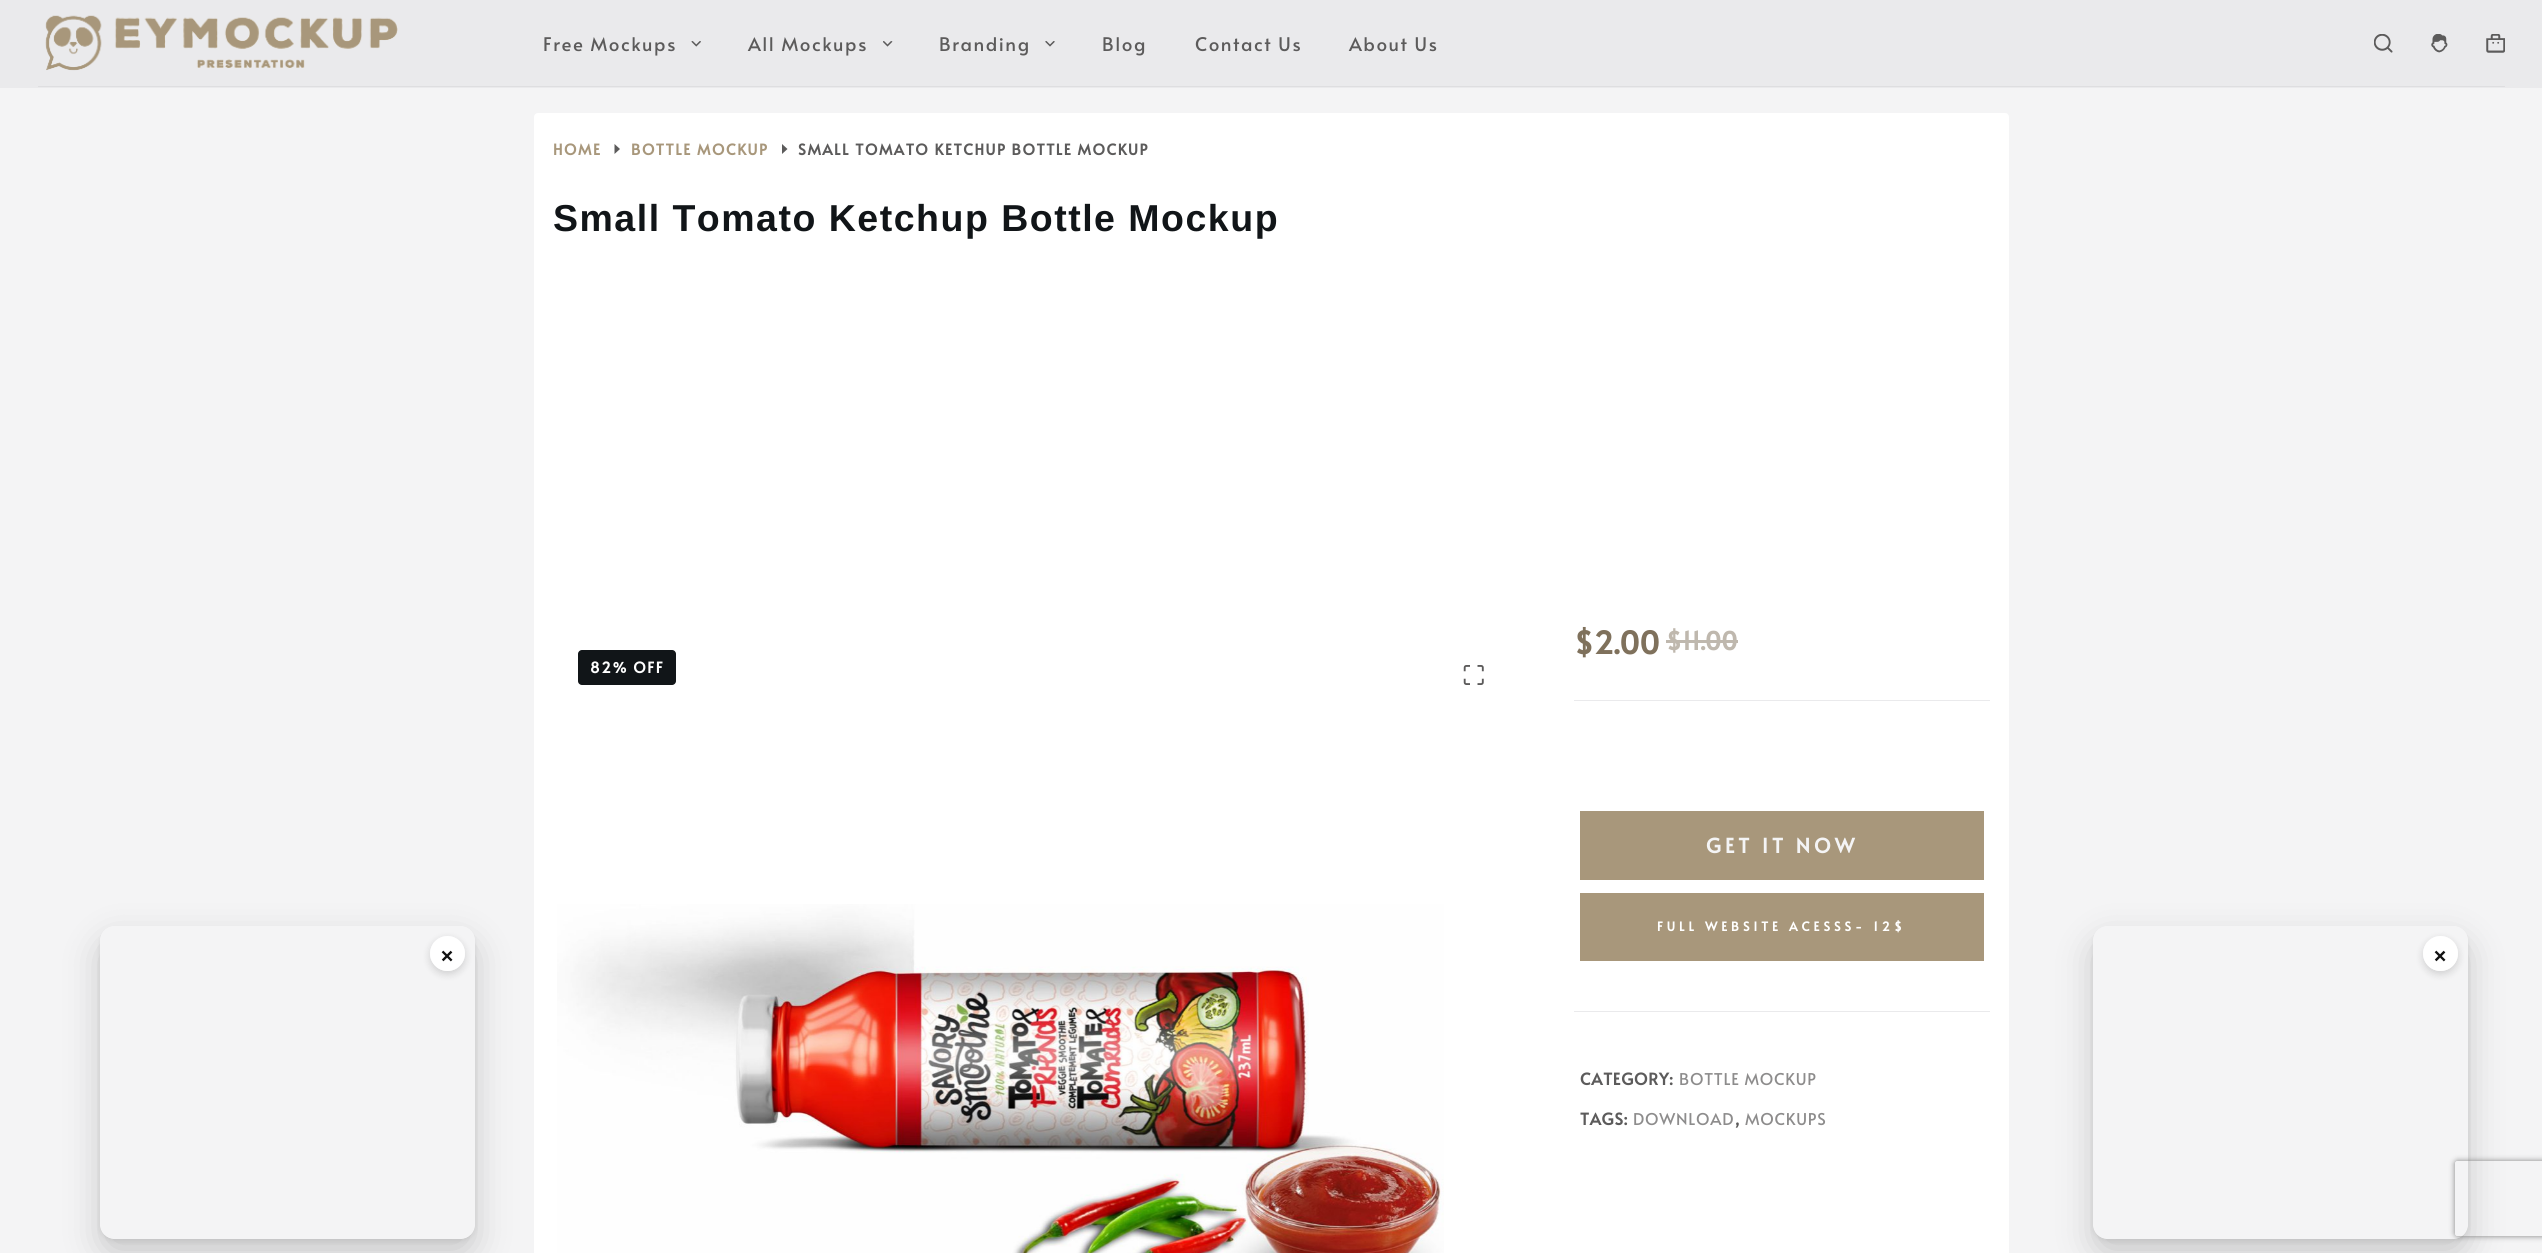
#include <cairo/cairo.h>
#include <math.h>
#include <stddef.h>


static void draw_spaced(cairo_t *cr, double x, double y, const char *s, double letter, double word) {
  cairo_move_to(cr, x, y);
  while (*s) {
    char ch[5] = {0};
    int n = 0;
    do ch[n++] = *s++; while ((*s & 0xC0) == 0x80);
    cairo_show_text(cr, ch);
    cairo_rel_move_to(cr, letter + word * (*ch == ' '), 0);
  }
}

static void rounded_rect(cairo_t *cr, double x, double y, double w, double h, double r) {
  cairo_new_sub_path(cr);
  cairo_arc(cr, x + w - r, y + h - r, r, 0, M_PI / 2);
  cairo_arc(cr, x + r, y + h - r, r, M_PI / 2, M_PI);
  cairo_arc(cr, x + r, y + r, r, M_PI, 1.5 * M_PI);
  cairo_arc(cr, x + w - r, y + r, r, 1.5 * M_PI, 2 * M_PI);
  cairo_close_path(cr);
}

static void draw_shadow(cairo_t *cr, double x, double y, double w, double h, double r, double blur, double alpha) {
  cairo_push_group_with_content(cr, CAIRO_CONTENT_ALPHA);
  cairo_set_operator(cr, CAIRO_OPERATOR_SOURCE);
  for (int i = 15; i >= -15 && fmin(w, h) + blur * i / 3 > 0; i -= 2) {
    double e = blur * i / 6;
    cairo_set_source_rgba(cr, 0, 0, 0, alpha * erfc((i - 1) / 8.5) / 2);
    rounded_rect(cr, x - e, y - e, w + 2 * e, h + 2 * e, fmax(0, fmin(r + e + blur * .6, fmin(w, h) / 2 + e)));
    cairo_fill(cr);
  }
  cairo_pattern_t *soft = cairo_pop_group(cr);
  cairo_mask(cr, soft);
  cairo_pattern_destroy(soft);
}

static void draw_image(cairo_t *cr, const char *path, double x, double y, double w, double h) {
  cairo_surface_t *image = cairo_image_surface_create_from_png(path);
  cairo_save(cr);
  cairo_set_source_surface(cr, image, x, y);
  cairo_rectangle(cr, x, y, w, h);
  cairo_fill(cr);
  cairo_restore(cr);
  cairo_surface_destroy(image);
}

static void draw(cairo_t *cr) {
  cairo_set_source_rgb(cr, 244 / 255.0, 244 / 255.0, 245 / 255.0);
  cairo_paint(cr);
  cairo_set_source_rgb(cr, 234 / 255.0, 234 / 255.0, 236 / 255.0);
  cairo_rectangle(cr, 0, 0, 2542, 88);
  cairo_fill(cr);
  cairo_set_source_rgb(cr, 222 / 255.0, 222 / 255.0, 224 / 255.0);
  cairo_rectangle(cr, 38, 86, 2467, 1);
  cairo_fill(cr);
  draw_image(cr, "images/1.png", 45, 15, 353, 56);
  draw_image(cr, "images/2.png", 691, 41, 10, 6);
  draw_image(cr, "images/3.png", 883, 41, 10, 6);
  draw_image(cr, "images/4.png", 1045, 41, 10, 6);
  draw_image(cr, "images/5.png", 2374, 34, 19, 19);
  draw_image(cr, "images/6.png", 2431, 34, 17, 19);
  draw_image(cr, "images/7.png", 2486, 34, 19, 19);
  cairo_set_source_rgb(cr, 1, 1, 1);
  rounded_rect(cr, 534, 113, 1475, 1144, 4);
  cairo_fill(cr);
  cairo_set_source_rgb(cr, 92 / 255.0, 91 / 255.0, 91 / 255.0);
  cairo_new_path(cr);
  cairo_move_to(cr, 614.5, 144);
  cairo_line_to(cr, 620, 149);
  cairo_line_to(cr, 614.5, 154);
  cairo_close_path(cr);
  cairo_fill(cr);
  cairo_new_path(cr);
  cairo_move_to(cr, 782, 144);
  cairo_line_to(cr, 787.5, 149);
  cairo_line_to(cr, 782, 154);
  cairo_close_path(cr);
  cairo_fill(cr);
  cairo_set_source_rgb(cr, 17 / 255.0, 21 / 255.0, 24 / 255.0);
  rounded_rect(cr, 578, 650, 98, 35, 4);
  cairo_fill(cr);
  draw_image(cr, "images/8.png", 1463, 665, 21, 20);
  draw_image(cr, "images/9.png", 557, 904, 887, 349);
  cairo_set_source_rgb(cr, 191 / 255.0, 184 / 255.0, 174 / 255.0);
  cairo_rectangle(cr, 1666, 640, 72, 3);
  cairo_fill(cr);
  cairo_set_source_rgb(cr, 234 / 255.0, 234 / 255.0, 236 / 255.0);
  cairo_rectangle(cr, 1574, 700, 416, 1);
  cairo_fill(cr);
  cairo_set_source_rgb(cr, 168 / 255.0, 151 / 255.0, 123 / 255.0);
  cairo_rectangle(cr, 1580, 811, 404, 69);
  cairo_fill(cr);
  cairo_rectangle(cr, 1580, 893, 404, 68);
  cairo_fill(cr);
  cairo_set_source_rgb(cr, 234 / 255.0, 234 / 255.0, 236 / 255.0);
  cairo_rectangle(cr, 1574, 1011, 416, 1);
  cairo_fill(cr);
  cairo_save(cr);
  cairo_set_fill_rule(cr, CAIRO_FILL_RULE_EVEN_ODD);
  cairo_new_path(cr);
  cairo_move_to(cr, 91, 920);
  cairo_line_to(cr, 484, 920);
  cairo_line_to(cr, 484, 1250);
  cairo_line_to(cr, 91, 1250);
  cairo_close_path(cr);
  cairo_move_to(cr, 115, 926);
  cairo_line_to(cr, 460, 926);
  cairo_curve_to(cr, 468.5, 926, 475, 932.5, 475, 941);
  cairo_line_to(cr, 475, 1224);
  cairo_curve_to(cr, 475, 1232.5, 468.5, 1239, 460, 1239);
  cairo_line_to(cr, 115, 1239);
  cairo_curve_to(cr, 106.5, 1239, 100, 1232.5, 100, 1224);
  cairo_line_to(cr, 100, 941);
  cairo_curve_to(cr, 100, 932.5, 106.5, 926, 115, 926);
  cairo_close_path(cr);
  cairo_clip(cr);
  cairo_set_source_rgb(cr, 0, 0, 0);
  draw_shadow(cr, 100, 929, 375, 312, 15, 2.5, 0.08);
  cairo_restore(cr);
  cairo_save(cr);
  cairo_set_fill_rule(cr, CAIRO_FILL_RULE_EVEN_ODD);
  cairo_new_path(cr);
  cairo_move_to(cr, 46, 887);
  cairo_line_to(cr, 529, 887);
  cairo_line_to(cr, 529, 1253);
  cairo_line_to(cr, 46, 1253);
  cairo_close_path(cr);
  cairo_move_to(cr, 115, 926);
  cairo_line_to(cr, 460, 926);
  cairo_curve_to(cr, 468.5, 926, 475, 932.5, 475, 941);
  cairo_line_to(cr, 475, 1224);
  cairo_curve_to(cr, 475, 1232.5, 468.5, 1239, 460, 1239);
  cairo_line_to(cr, 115, 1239);
  cairo_curve_to(cr, 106.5, 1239, 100, 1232.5, 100, 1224);
  cairo_line_to(cr, 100, 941);
  cairo_curve_to(cr, 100, 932.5, 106.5, 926, 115, 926);
  cairo_close_path(cr);
  cairo_clip(cr);
  cairo_set_source_rgb(cr, 0, 0, 0);
  draw_shadow(cr, 100, 941, 375, 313, 15, 17.5, 0.18);
  cairo_restore(cr);
  cairo_save(cr);
  cairo_set_fill_rule(cr, CAIRO_FILL_RULE_EVEN_ODD);
  cairo_new_path(cr);
  cairo_move_to(cr, 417, 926);
  cairo_line_to(cr, 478, 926);
  cairo_line_to(cr, 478, 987);
  cairo_line_to(cr, 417, 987);
  cairo_close_path(cr);
  cairo_move_to(cr, 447.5, 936);
  cairo_curve_to(cr, 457, 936, 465, 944, 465, 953.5);
  cairo_curve_to(cr, 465, 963, 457, 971, 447.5, 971);
  cairo_curve_to(cr, 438, 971, 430, 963, 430, 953.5);
  cairo_curve_to(cr, 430, 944, 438, 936, 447.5, 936);
  cairo_close_path(cr);
  cairo_clip(cr);
  cairo_set_source_rgb(cr, 0, 0, 0);
  draw_shadow(cr, 430, 939, 35, 35, 17.5, 4, 0.15);
  cairo_restore(cr);
  cairo_set_source_rgba(cr, 1, 1, 1, 0.96);
  cairo_arc(cr, 447.5, 953.5, 17.5, 0, 2 * M_PI);
  cairo_fill(cr);
  cairo_save(cr);
  cairo_set_fill_rule(cr, CAIRO_FILL_RULE_EVEN_ODD);
  cairo_new_path(cr);
  cairo_move_to(cr, 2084, 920);
  cairo_line_to(cr, 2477, 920);
  cairo_line_to(cr, 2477, 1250);
  cairo_line_to(cr, 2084, 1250);
  cairo_close_path(cr);
  cairo_move_to(cr, 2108, 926);
  cairo_line_to(cr, 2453, 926);
  cairo_curve_to(cr, 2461.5, 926, 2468, 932.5, 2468, 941);
  cairo_line_to(cr, 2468, 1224);
  cairo_curve_to(cr, 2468, 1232.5, 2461.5, 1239, 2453, 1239);
  cairo_line_to(cr, 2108, 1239);
  cairo_curve_to(cr, 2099.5, 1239, 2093, 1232.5, 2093, 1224);
  cairo_line_to(cr, 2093, 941);
  cairo_curve_to(cr, 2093, 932.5, 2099.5, 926, 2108, 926);
  cairo_close_path(cr);
  cairo_clip(cr);
  cairo_set_source_rgb(cr, 0, 0, 0);
  draw_shadow(cr, 2093, 929, 375, 312, 15, 2.5, 0.08);
  cairo_restore(cr);
  cairo_save(cr);
  cairo_set_fill_rule(cr, CAIRO_FILL_RULE_EVEN_ODD);
  cairo_new_path(cr);
  cairo_move_to(cr, 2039, 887);
  cairo_line_to(cr, 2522, 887);
  cairo_line_to(cr, 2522, 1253);
  cairo_line_to(cr, 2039, 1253);
  cairo_close_path(cr);
  cairo_move_to(cr, 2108, 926);
  cairo_line_to(cr, 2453, 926);
  cairo_curve_to(cr, 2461.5, 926, 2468, 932.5, 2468, 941);
  cairo_line_to(cr, 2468, 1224);
  cairo_curve_to(cr, 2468, 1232.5, 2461.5, 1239, 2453, 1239);
  cairo_line_to(cr, 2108, 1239);
  cairo_curve_to(cr, 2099.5, 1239, 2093, 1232.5, 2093, 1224);
  cairo_line_to(cr, 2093, 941);
  cairo_curve_to(cr, 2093, 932.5, 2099.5, 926, 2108, 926);
  cairo_close_path(cr);
  cairo_clip(cr);
  cairo_set_source_rgb(cr, 0, 0, 0);
  draw_shadow(cr, 2093, 941, 375, 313, 15, 17.5, 0.18);
  cairo_restore(cr);
  cairo_save(cr);
  cairo_set_fill_rule(cr, CAIRO_FILL_RULE_EVEN_ODD);
  cairo_new_path(cr);
  cairo_move_to(cr, 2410, 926);
  cairo_line_to(cr, 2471, 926);
  cairo_line_to(cr, 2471, 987);
  cairo_line_to(cr, 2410, 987);
  cairo_close_path(cr);
  cairo_move_to(cr, 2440.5, 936);
  cairo_curve_to(cr, 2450, 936, 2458, 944, 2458, 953.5);
  cairo_curve_to(cr, 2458, 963, 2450, 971, 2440.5, 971);
  cairo_curve_to(cr, 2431, 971, 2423, 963, 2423, 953.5);
  cairo_curve_to(cr, 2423, 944, 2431, 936, 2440.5, 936);
  cairo_close_path(cr);
  cairo_clip(cr);
  cairo_set_source_rgb(cr, 0, 0, 0);
  draw_shadow(cr, 2423, 939, 35, 35, 17.5, 4, 0.15);
  cairo_restore(cr);
  cairo_arc(cr, 2440.5, 953.5, 17.5, 0, 2 * M_PI);
  cairo_fill(cr);
  cairo_save(cr);
  cairo_set_fill_rule(cr, CAIRO_FILL_RULE_EVEN_ODD);
  cairo_new_path(cr);
  cairo_move_to(cr, 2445, 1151);
  cairo_line_to(cr, 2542, 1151);
  cairo_line_to(cr, 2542, 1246);
  cairo_line_to(cr, 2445, 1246);
  cairo_close_path(cr);
  cairo_move_to(cr, 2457.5, 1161);
  cairo_line_to(cr, 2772.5, 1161);
  cairo_curve_to(cr, 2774, 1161, 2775, 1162, 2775, 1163.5);
  cairo_line_to(cr, 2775, 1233.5);
  cairo_curve_to(cr, 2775, 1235, 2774, 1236, 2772.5, 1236);
  cairo_line_to(cr, 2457.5, 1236);
  cairo_curve_to(cr, 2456, 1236, 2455, 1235, 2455, 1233.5);
  cairo_line_to(cr, 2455, 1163.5);
  cairo_curve_to(cr, 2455, 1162, 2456, 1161, 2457.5, 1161);
  cairo_close_path(cr);
  cairo_clip(cr);
  cairo_set_source_rgb(cr, 128 / 255.0, 128 / 255.0, 128 / 255.0);
  draw_shadow(cr, 2455, 1161, 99, 75, 2.5, 3, 1);
  cairo_restore(cr);
  cairo_select_font_face(cr, "Alata", CAIRO_FONT_SLANT_NORMAL, CAIRO_FONT_WEIGHT_NORMAL);
  cairo_set_font_size(cr, 18.75);
  cairo_set_source_rgb(cr, 92 / 255.0, 91 / 255.0, 91 / 255.0);
  draw_spaced(cr, 543, 51, "Free Mockups", 1.5, 0);
  draw_spaced(cr, 748, 51, "All Mockups", 1.5, 0);
  draw_spaced(cr, 939, 51, "Branding", 1.5, 0);
  draw_spaced(cr, 1102, 51, "Blog", 1.5, 0);
  draw_spaced(cr, 1195, 51, "Contact Us", 1.5, 0);
  draw_spaced(cr, 1349, 51, "About Us", 1.5, 0);
  cairo_select_font_face(cr, "Alata", CAIRO_FONT_SLANT_NORMAL, CAIRO_FONT_WEIGHT_BOLD);
  cairo_set_font_size(cr, 15);
  cairo_set_source_rgb(cr, 168 / 255.0, 151 / 255.0, 123 / 255.0);
  draw_spaced(cr, 553, 155, "HOME", 1.5, 0);
  draw_spaced(cr, 631, 155, "BOTTLE MOCKUP", 1.5, 0);
  cairo_set_source_rgb(cr, 92 / 255.0, 91 / 255.0, 91 / 255.0);
  draw_spaced(cr, 798, 155, "SMALL TOMATO KETCHUP BOTTLE MOCKUP", 1.5, 0);
  cairo_select_font_face(cr, "Liberation Sans", CAIRO_FONT_SLANT_NORMAL, CAIRO_FONT_WEIGHT_BOLD);
  cairo_set_font_size(cr, 37.5);
  cairo_set_source_rgb(cr, 17 / 255.0, 21 / 255.0, 24 / 255.0);
  draw_spaced(cr, 553, 231, "Small Tomato Ketchup Bottle Mockup", 1.5, 0);
  cairo_select_font_face(cr, "Alata", CAIRO_FONT_SLANT_NORMAL, CAIRO_FONT_WEIGHT_BOLD);
  cairo_set_font_size(cr, 15);
  cairo_set_source_rgb(cr, 1, 1, 1);
  draw_spaced(cr, 590, 673, "82% OFF", 1.5, 0);
  cairo_set_font_size(cr, 31);
  cairo_set_source_rgb(cr, 127 / 255.0, 113 / 255.0, 92 / 255.0);
  cairo_move_to(cr, 1574, 654);
  cairo_show_text(cr, "$2.00");
  cairo_set_font_size(cr, 25);
  cairo_set_source_rgb(cr, 191 / 255.0, 184 / 255.0, 174 / 255.0);
  cairo_move_to(cr, 1666, 650);
  cairo_show_text(cr, "$11.00");
  cairo_set_font_size(cr, 20);
  cairo_set_source_rgb(cr, 244 / 255.0, 244 / 255.0, 245 / 255.0);
  draw_spaced(cr, 1706, 853, "GET IT NOW", 4, 0);
  cairo_set_font_size(cr, 12.5);
  cairo_set_source_rgb(cr, 1, 1, 1);
  draw_spaced(cr, 1657, 931, "FULL WEBSITE ACESSS- 12$", 4, 0);
  cairo_set_font_size(cr, 16.25);
  cairo_set_source_rgb(cr, 92 / 255.0, 91 / 255.0, 91 / 255.0);
  draw_spaced(cr, 1580, 1085, "CATEGORY:", 0.75, 0);
  cairo_select_font_face(cr, "Alata", CAIRO_FONT_SLANT_NORMAL, CAIRO_FONT_WEIGHT_NORMAL);
  cairo_set_source_rgb(cr, 141 / 255.0, 140 / 255.0, 140 / 255.0);
  draw_spaced(cr, 1679, 1085, "BOTTLE MOCKUP", 0.75, 0);
  cairo_select_font_face(cr, "Alata", CAIRO_FONT_SLANT_NORMAL, CAIRO_FONT_WEIGHT_BOLD);
  cairo_set_source_rgb(cr, 92 / 255.0, 91 / 255.0, 91 / 255.0);
  draw_spaced(cr, 1580, 1125, "TAGS:", 0.75, 0);
  cairo_select_font_face(cr, "Alata", CAIRO_FONT_SLANT_NORMAL, CAIRO_FONT_WEIGHT_NORMAL);
  cairo_set_source_rgb(cr, 141 / 255.0, 140 / 255.0, 140 / 255.0);
  draw_spaced(cr, 1633, 1125, "DOWNLOAD", 0.75, 0);
  cairo_select_font_face(cr, "Alata", CAIRO_FONT_SLANT_NORMAL, CAIRO_FONT_WEIGHT_BOLD);
  cairo_set_source_rgb(cr, 92 / 255.0, 91 / 255.0, 91 / 255.0);
  draw_spaced(cr, 1735, 1125, ",", 0.75, 0);
  cairo_select_font_face(cr, "Alata", CAIRO_FONT_SLANT_NORMAL, CAIRO_FONT_WEIGHT_NORMAL);
  cairo_set_source_rgb(cr, 141 / 255.0, 140 / 255.0, 140 / 255.0);
  draw_spaced(cr, 1745, 1125, "MOCKUPS", 0.75, 0);
  cairo_set_font_size(cr, 25);
  cairo_set_source_rgb(cr, 17 / 255.0, 17 / 255.0, 17 / 255.0);
  cairo_move_to(cr, 439, 964);
  cairo_show_text(cr, "×");
  cairo_move_to(cr, 2432, 964);
  cairo_show_text(cr, "×");
}

int main(void) {
  cairo_surface_t *surface = cairo_image_surface_create(CAIRO_FORMAT_RGB24, 2542, 1253);
  cairo_t *cr = cairo_create(surface);
  cairo_font_options_t *options = cairo_font_options_create();
  cairo_font_options_set_hint_metrics(options, CAIRO_HINT_METRICS_OFF);
  cairo_font_options_set_hint_style(options, CAIRO_HINT_STYLE_NONE);
  cairo_set_font_options(cr, options);
  cairo_set_miter_limit(cr, 4);
  draw(cr);
  cairo_surface_write_to_png(surface, "out.png");
  cairo_font_options_destroy(options);
  cairo_destroy(cr);
  cairo_surface_destroy(surface);
  return 0;
}
